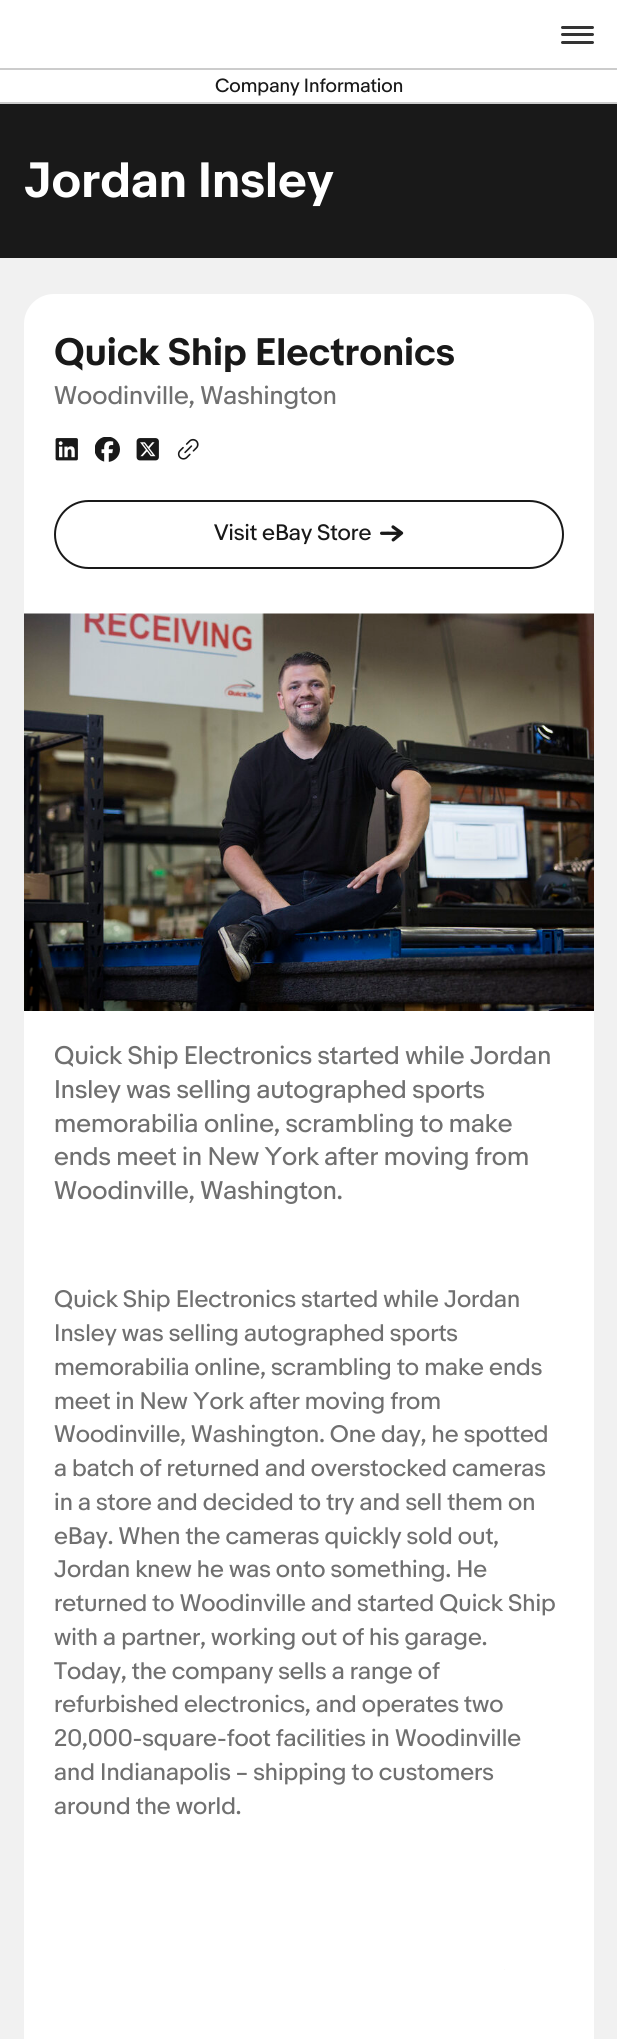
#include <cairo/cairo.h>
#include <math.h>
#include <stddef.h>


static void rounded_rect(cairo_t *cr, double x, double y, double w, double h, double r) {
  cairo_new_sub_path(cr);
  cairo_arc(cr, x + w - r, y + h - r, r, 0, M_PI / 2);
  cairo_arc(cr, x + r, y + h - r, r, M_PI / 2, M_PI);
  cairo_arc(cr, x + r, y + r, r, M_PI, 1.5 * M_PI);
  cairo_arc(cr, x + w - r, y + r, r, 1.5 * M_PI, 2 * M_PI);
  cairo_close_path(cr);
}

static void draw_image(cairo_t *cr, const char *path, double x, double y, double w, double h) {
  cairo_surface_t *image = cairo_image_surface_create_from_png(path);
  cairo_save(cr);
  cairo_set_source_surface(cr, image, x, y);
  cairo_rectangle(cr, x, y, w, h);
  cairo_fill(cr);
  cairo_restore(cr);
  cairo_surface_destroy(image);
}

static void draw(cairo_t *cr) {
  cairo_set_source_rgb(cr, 241 / 255.0, 241 / 255.0, 241 / 255.0);
  cairo_paint(cr);
  cairo_set_source_rgb(cr, 1, 1, 1);
  cairo_rectangle(cr, 0, 0, 617, 102);
  cairo_fill(cr);
  cairo_set_source_rgb(cr, 51 / 255.0, 51 / 255.0, 51 / 255.0);
  rounded_rect(cr, 561, 33, 33, 3, 1.5);
  cairo_fill(cr);
  rounded_rect(cr, 561, 26, 33, 3, 1.5);
  cairo_fill(cr);
  rounded_rect(cr, 561, 41, 33, 3, 1.5);
  cairo_fill(cr);
  cairo_set_source_rgb(cr, 204 / 255.0, 204 / 255.0, 204 / 255.0);
  cairo_rectangle(cr, 0, 68, 617, 2);
  cairo_fill(cr);
  cairo_rectangle(cr, 0, 102, 617, 2);
  cairo_fill(cr);
  cairo_set_source_rgb(cr, 25 / 255.0, 25 / 255.0, 25 / 255.0);
  cairo_rectangle(cr, 0, 104, 617, 154);
  cairo_fill(cr);
  cairo_set_source_rgb(cr, 1, 1, 1);
  rounded_rect(cr, 24, 294, 570, 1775, 30);
  cairo_fill(cr);
  draw_image(cr, "images/1.png", 55, 438, 23, 23);
  draw_image(cr, "images/2.png", 95, 437, 25, 25);
  draw_image(cr, "images/3.png", 136, 438, 23, 23);
  draw_image(cr, "images/4.png", 177, 438, 22, 22);
  rounded_rect(cr, 55, 501, 508, 67, 33.5);
  cairo_set_source_rgb(cr, 25 / 255.0, 25 / 255.0, 25 / 255.0);
  cairo_stroke(cr);
  draw_image(cr, "images/5.png", 380, 525, 24, 17);
  draw_image(cr, "images/6.png", 24, 613, 570, 398);
  cairo_set_source_rgb(cr, 251 / 255.0, 251 / 255.0, 251 / 255.0);
  cairo_rectangle(cr, 504, 1969, 1, 1);
  cairo_fill(cr);
  cairo_select_font_face(cr, "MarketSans", CAIRO_FONT_SLANT_NORMAL, CAIRO_FONT_WEIGHT_NORMAL);
  cairo_set_font_size(cr, 18);
  cairo_set_source_rgb(cr, 25 / 255.0, 25 / 255.0, 25 / 255.0);
  cairo_move_to(cr, 215, 92);
  cairo_show_text(cr, "Company Information");
  cairo_select_font_face(cr, "MarketSans", CAIRO_FONT_SLANT_NORMAL, CAIRO_FONT_WEIGHT_BOLD);
  cairo_set_font_size(cr, 46.5);
  cairo_set_source_rgb(cr, 1, 1, 1);
  cairo_move_to(cr, 24, 197);
  cairo_show_text(cr, "Jordan Insley");
  cairo_set_font_size(cr, 36);
  cairo_set_source_rgb(cr, 25 / 255.0, 25 / 255.0, 25 / 255.0);
  cairo_move_to(cr, 54, 365);
  cairo_show_text(cr, "Quick Ship Electronics");
  cairo_select_font_face(cr, "MarketSans", CAIRO_FONT_SLANT_NORMAL, CAIRO_FONT_WEIGHT_NORMAL);
  cairo_set_font_size(cr, 24);
  cairo_set_source_rgb(cr, 112 / 255.0, 112 / 255.0, 112 / 255.0);
  cairo_move_to(cr, 54, 404);
  cairo_show_text(cr, "Woodinville, Washington");
  cairo_set_font_size(cr, 21);
  cairo_set_source_rgb(cr, 25 / 255.0, 25 / 255.0, 25 / 255.0);
  cairo_move_to(cr, 214, 540);
  cairo_show_text(cr, "Visit eBay Store");
  cairo_set_font_size(cr, 24);
  cairo_set_source_rgb(cr, 112 / 255.0, 112 / 255.0, 112 / 255.0);
  cairo_move_to(cr, 54, 1064);
  cairo_show_text(cr, "Quick Ship Electronics started while Jordan");
  cairo_move_to(cr, 54, 1098);
  cairo_show_text(cr, "Insley was selling autographed sports");
  cairo_move_to(cr, 54, 1132);
  cairo_show_text(cr, "memorabilia online, scrambling to make");
  cairo_move_to(cr, 54, 1165);
  cairo_show_text(cr, "ends meet in New York after moving from");
  cairo_move_to(cr, 54, 1199);
  cairo_show_text(cr, "Woodinville, Washington.");
  cairo_set_font_size(cr, 22.5);
  cairo_move_to(cr, 54, 1307);
  cairo_show_text(cr, "Quick Ship Electronics started while Jordan");
  cairo_move_to(cr, 54, 1341);
  cairo_show_text(cr, "Insley was selling autographed sports");
  cairo_move_to(cr, 54, 1375);
  cairo_show_text(cr, "memorabilia online, scrambling to make ends");
  cairo_move_to(cr, 54, 1409);
  cairo_show_text(cr, "meet in New York after moving from");
  cairo_move_to(cr, 54, 1442);
  cairo_show_text(cr, "Woodinville, Washington. One day, he spotted");
  cairo_move_to(cr, 54, 1476);
  cairo_show_text(cr, "a batch of returned and overstocked cameras");
  cairo_move_to(cr, 54, 1510);
  cairo_show_text(cr, "in a store and decided to try and sell them on");
  cairo_move_to(cr, 54, 1544);
  cairo_show_text(cr, "eBay. When the cameras quickly sold out,");
  cairo_move_to(cr, 54, 1577);
  cairo_show_text(cr, "Jordan knew he was onto something. He");
  cairo_move_to(cr, 54, 1611);
  cairo_show_text(cr, "returned to Woodinville and started Quick Ship");
  cairo_move_to(cr, 54, 1645);
  cairo_show_text(cr, "with a partner, working out of his garage.");
  cairo_move_to(cr, 54, 1679);
  cairo_show_text(cr, "Today, the company sells a range of");
  cairo_move_to(cr, 54, 1712);
  cairo_show_text(cr, "refurbished electronics, and operates two");
  cairo_move_to(cr, 54, 1746);
  cairo_show_text(cr, "20,000-square-foot facilities in Woodinville");
  cairo_move_to(cr, 54, 1780);
  cairo_show_text(cr, "and Indianapolis – shipping to customers");
  cairo_move_to(cr, 54, 1814);
  cairo_show_text(cr, "around the world.");
}

int main(void) {
  cairo_surface_t *surface = cairo_image_surface_create(CAIRO_FORMAT_RGB24, 617, 2039);
  cairo_t *cr = cairo_create(surface);
  cairo_font_options_t *options = cairo_font_options_create();
  cairo_font_options_set_hint_metrics(options, CAIRO_HINT_METRICS_OFF);
  cairo_font_options_set_hint_style(options, CAIRO_HINT_STYLE_NONE);
  cairo_set_font_options(cr, options);
  cairo_set_miter_limit(cr, 4);
  draw(cr);
  cairo_surface_write_to_png(surface, "out.png");
  cairo_font_options_destroy(options);
  cairo_destroy(cr);
  cairo_surface_destroy(surface);
  return 0;
}
